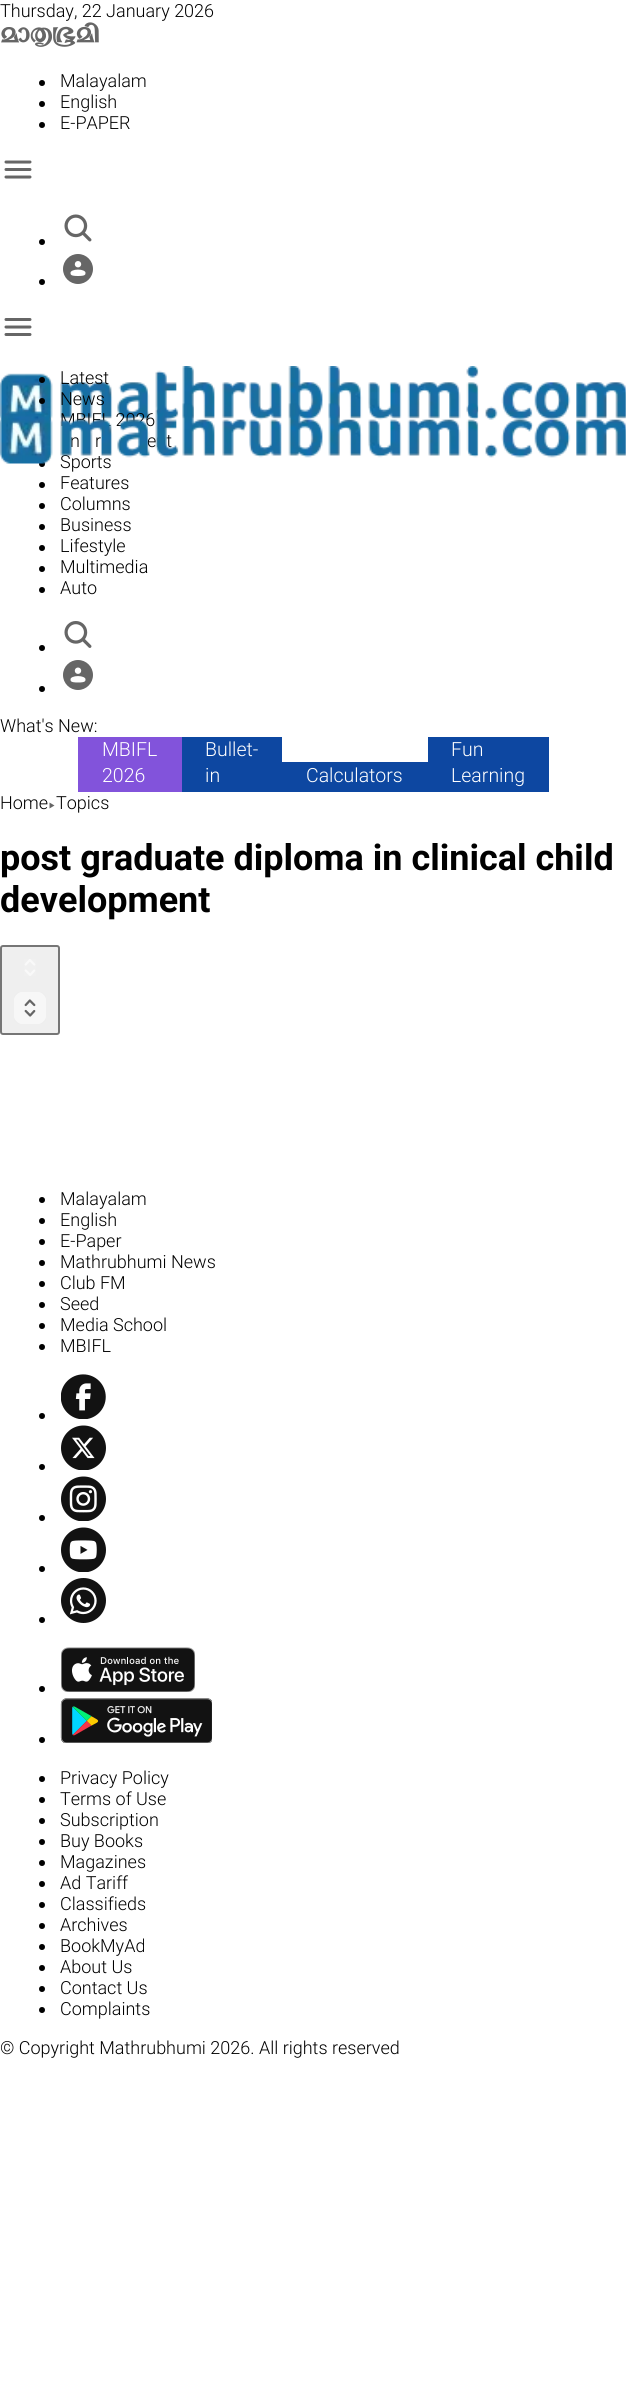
#include <cairo/cairo.h>
#include <math.h>
#include <stddef.h>


static void rounded_rect(cairo_t *cr, double x, double y, double w, double h, double r) {
  cairo_new_sub_path(cr);
  cairo_arc(cr, x + w - r, y + h - r, r, 0, M_PI / 2);
  cairo_arc(cr, x + r, y + h - r, r, M_PI / 2, M_PI);
  cairo_arc(cr, x + r, y + r, r, M_PI, 1.5 * M_PI);
  cairo_arc(cr, x + w - r, y + r, r, 1.5 * M_PI, 2 * M_PI);
  cairo_close_path(cr);
}

static void draw_image(cairo_t *cr, const char *path, double x, double y, double w, double h) {
  cairo_surface_t *image = cairo_image_surface_create_from_png(path);
  cairo_save(cr);
  cairo_set_source_surface(cr, image, x, y);
  cairo_rectangle(cr, x, y, w, h);
  cairo_fill(cr);
  cairo_restore(cr);
  cairo_surface_destroy(image);
}

static void draw(cairo_t *cr) {
  cairo_set_source_rgb(cr, 1, 1, 1);
  cairo_paint(cr);
  draw_image(cr, "images/1.png", 1, 22, 98, 25);
  cairo_set_source_rgb(cr, 0, 0, 0);
  cairo_arc(cr, 42, 83, 3, 0, 2 * M_PI);
  cairo_fill(cr);
  cairo_arc(cr, 42, 104, 3, 0, 2 * M_PI);
  cairo_fill(cr);
  cairo_arc(cr, 42, 125, 3, 0, 2 * M_PI);
  cairo_fill(cr);
  draw_image(cr, "images/2.png", 0, 366, 626, 57);
  draw_image(cr, "images/3.png", 4, 160, 28, 19);
  cairo_arc(cr, 42, 242, 3, 0, 2 * M_PI);
  cairo_fill(cr);
  draw_image(cr, "images/5.png", 64, 214, 28, 28);
  cairo_arc(cr, 42, 282, 3, 0, 2 * M_PI);
  cairo_fill(cr);
  draw_image(cr, "images/6.png", 63, 254, 30, 30);
  draw_image(cr, "images/7.png", 4, 318, 28, 18);
  cairo_arc(cr, 42, 380, 3, 0, 2 * M_PI);
  cairo_fill(cr);
  cairo_arc(cr, 42, 401, 3, 0, 2 * M_PI);
  cairo_fill(cr);
  cairo_arc(cr, 42, 464, 3, 0, 2 * M_PI);
  cairo_fill(cr);
  cairo_arc(cr, 42, 485, 3, 0, 2 * M_PI);
  cairo_fill(cr);
  cairo_arc(cr, 42, 506, 3, 0, 2 * M_PI);
  cairo_fill(cr);
  cairo_arc(cr, 42, 527, 3, 0, 2 * M_PI);
  cairo_fill(cr);
  cairo_arc(cr, 42, 548, 3, 0, 2 * M_PI);
  cairo_fill(cr);
  cairo_arc(cr, 42, 569, 3, 0, 2 * M_PI);
  cairo_fill(cr);
  cairo_arc(cr, 42, 590, 3, 0, 2 * M_PI);
  cairo_fill(cr);
  cairo_arc(cr, 42, 648, 3, 0, 2 * M_PI);
  cairo_fill(cr);
  draw_image(cr, "images/8.png", 64, 621, 28, 27);
  cairo_arc(cr, 42, 689, 3, 0, 2 * M_PI);
  cairo_fill(cr);
  draw_image(cr, "images/9.png", 63, 660, 30, 30);
  cairo_set_source_rgb(cr, 130 / 255.0, 83 / 255.0, 219 / 255.0);
  cairo_rectangle(cr, 78, 737, 104, 55);
  cairo_fill(cr);
  cairo_set_source_rgb(cr, 13 / 255.0, 71 / 255.0, 161 / 255.0);
  cairo_rectangle(cr, 182, 737, 100, 55);
  cairo_fill(cr);
  cairo_rectangle(cr, 282, 762, 146, 30);
  cairo_fill(cr);
  cairo_rectangle(cr, 428, 737, 121, 55);
  cairo_fill(cr);
  cairo_set_source_rgb(cr, 102 / 255.0, 102 / 255.0, 102 / 255.0);
  cairo_new_path(cr);
  cairo_move_to(cr, 54.5, 805.5);
  cairo_line_to(cr, 49.5, 808.5);
  cairo_line_to(cr, 49.5, 802.5);
  cairo_close_path(cr);
  cairo_fill(cr);
  cairo_set_source_rgb(cr, 239 / 255.0, 239 / 255.0, 239 / 255.0);
  rounded_rect(cr, 1, 946, 58, 88, 2);
  cairo_fill_preserve(cr);
  cairo_set_source_rgb(cr, 118 / 255.0, 118 / 255.0, 118 / 255.0);
  cairo_stroke(cr);
  draw_image(cr, "images/10.png", 24, 959, 12, 17);
  draw_image(cr, "images/11.png", 14, 992, 32, 32);
  cairo_set_source_rgb(cr, 0, 0, 0);
  cairo_arc(cr, 42, 1200, 3, 0, 2 * M_PI);
  cairo_fill(cr);
  cairo_arc(cr, 42, 1221, 3, 0, 2 * M_PI);
  cairo_fill(cr);
  cairo_arc(cr, 42, 1242, 3, 0, 2 * M_PI);
  cairo_fill(cr);
  cairo_arc(cr, 42, 1263, 3, 0, 2 * M_PI);
  cairo_fill(cr);
  cairo_arc(cr, 42, 1284, 3, 0, 2 * M_PI);
  cairo_fill(cr);
  cairo_arc(cr, 42, 1305, 3, 0, 2 * M_PI);
  cairo_fill(cr);
  cairo_arc(cr, 42, 1326, 3, 0, 2 * M_PI);
  cairo_fill(cr);
  cairo_arc(cr, 42, 1347, 3, 0, 2 * M_PI);
  cairo_fill(cr);
  cairo_arc(cr, 42, 1416, 3, 0, 2 * M_PI);
  cairo_fill(cr);
  draw_image(cr, "images/12.png", 61, 1374, 45, 45);
  cairo_arc(cr, 42, 1467, 3, 0, 2 * M_PI);
  cairo_fill(cr);
  draw_image(cr, "images/13.png", 61, 1425, 45, 45);
  cairo_arc(cr, 42, 1518, 3, 0, 2 * M_PI);
  cairo_fill(cr);
  draw_image(cr, "images/14.png", 61, 1476, 45, 45);
  cairo_arc(cr, 42, 1569, 3, 0, 2 * M_PI);
  cairo_fill(cr);
  draw_image(cr, "images/15.png", 61, 1527, 45, 45);
  cairo_arc(cr, 42, 1620, 3, 0, 2 * M_PI);
  cairo_fill(cr);
  draw_image(cr, "images/16.png", 61, 1578, 45, 45);
  cairo_arc(cr, 42, 1689, 3, 0, 2 * M_PI);
  cairo_fill(cr);
  draw_image(cr, "images/17.png", 61, 1647, 134, 45);
  cairo_arc(cr, 42, 1740, 3, 0, 2 * M_PI);
  cairo_fill(cr);
  draw_image(cr, "images/18.png", 60, 1698, 152, 45);
  cairo_arc(cr, 42, 1779, 3, 0, 2 * M_PI);
  cairo_fill(cr);
  cairo_arc(cr, 42, 1800, 3, 0, 2 * M_PI);
  cairo_fill(cr);
  cairo_arc(cr, 42, 1821, 3, 0, 2 * M_PI);
  cairo_fill(cr);
  cairo_arc(cr, 42, 1842, 3, 0, 2 * M_PI);
  cairo_fill(cr);
  cairo_arc(cr, 42, 1863, 3, 0, 2 * M_PI);
  cairo_fill(cr);
  cairo_arc(cr, 42, 1884, 3, 0, 2 * M_PI);
  cairo_fill(cr);
  cairo_arc(cr, 42, 1905, 3, 0, 2 * M_PI);
  cairo_fill(cr);
  cairo_arc(cr, 42, 1926, 3, 0, 2 * M_PI);
  cairo_fill(cr);
  cairo_arc(cr, 42, 1947, 3, 0, 2 * M_PI);
  cairo_fill(cr);
  cairo_arc(cr, 42, 1968, 3, 0, 2 * M_PI);
  cairo_fill(cr);
  cairo_arc(cr, 42, 1989, 3, 0, 2 * M_PI);
  cairo_fill(cr);
  cairo_arc(cr, 42, 2010, 3, 0, 2 * M_PI);
  cairo_fill(cr);
  cairo_select_font_face(cr, "Roboto Light", CAIRO_FONT_SLANT_NORMAL, CAIRO_FONT_WEIGHT_NORMAL);
  cairo_set_font_size(cr, 18);
  cairo_move_to(cr, 0, 17);
  cairo_show_text(cr, "Thursday, 22 January 2026");
  cairo_move_to(cr, 60, 87);
  cairo_show_text(cr, "Malayalam");
  cairo_move_to(cr, 60, 108);
  cairo_show_text(cr, "English");
  cairo_move_to(cr, 60, 129);
  cairo_show_text(cr, "E-PAPER");
  cairo_move_to(cr, 60, 384);
  cairo_show_text(cr, "Latest");
  cairo_move_to(cr, 60, 405);
  cairo_show_text(cr, "News");
  cairo_move_to(cr, 60, 426);
  cairo_show_text(cr, "MBIFL 2026");
  cairo_move_to(cr, 70, 447);
  cairo_show_text(cr, "n");
  cairo_move_to(cr, 95, 447);
  cairo_show_text(cr, "r");
  cairo_move_to(cr, 147, 447);
  cairo_show_text(cr, "ent");
  cairo_move_to(cr, 60, 468);
  cairo_show_text(cr, "Sports");
  draw_image(cr, "images/4.png", 0, 403, 626, 61);
  cairo_move_to(cr, 60, 489);
  cairo_show_text(cr, "Features");
  cairo_move_to(cr, 60, 510);
  cairo_show_text(cr, "Columns");
  cairo_move_to(cr, 60, 531);
  cairo_show_text(cr, "Business");
  cairo_move_to(cr, 60, 552);
  cairo_show_text(cr, "Lifestyle");
  cairo_move_to(cr, 60, 573);
  cairo_show_text(cr, "Multimedia");
  cairo_move_to(cr, 60, 594);
  cairo_show_text(cr, "Auto");
  cairo_move_to(cr, 0, 732);
  cairo_show_text(cr, "What's New:");
  cairo_set_font_size(cr, 19.5);
  cairo_set_source_rgb(cr, 1, 1, 1);
  cairo_move_to(cr, 102, 756);
  cairo_show_text(cr, "MBIFL");
  cairo_move_to(cr, 102, 782);
  cairo_show_text(cr, "2026");
  cairo_move_to(cr, 205, 756);
  cairo_show_text(cr, "Bullet-");
  cairo_move_to(cr, 205, 782);
  cairo_show_text(cr, "in");
  cairo_move_to(cr, 306, 782);
  cairo_show_text(cr, "Calculators");
  cairo_move_to(cr, 451, 756);
  cairo_show_text(cr, "Fun");
  cairo_move_to(cr, 451, 782);
  cairo_show_text(cr, "Learning");
  cairo_set_font_size(cr, 18);
  cairo_set_source_rgb(cr, 0, 0, 0);
  cairo_move_to(cr, 0, 809);
  cairo_show_text(cr, "Home");
  cairo_move_to(cr, 56, 809);
  cairo_show_text(cr, "Topics");
  cairo_select_font_face(cr, "Roboto", CAIRO_FONT_SLANT_NORMAL, CAIRO_FONT_WEIGHT_BOLD);
  cairo_set_font_size(cr, 36);
  cairo_move_to(cr, 0, 870);
  cairo_show_text(cr, "post graduate diploma in clinical child");
  cairo_move_to(cr, 0, 912);
  cairo_show_text(cr, "development");
  cairo_select_font_face(cr, "Roboto Light", CAIRO_FONT_SLANT_NORMAL, CAIRO_FONT_WEIGHT_NORMAL);
  cairo_set_font_size(cr, 18);
  cairo_move_to(cr, 60, 1205);
  cairo_show_text(cr, "Malayalam");
  cairo_move_to(cr, 60, 1226);
  cairo_show_text(cr, "English");
  cairo_move_to(cr, 60, 1247);
  cairo_show_text(cr, "E-Paper");
  cairo_move_to(cr, 60, 1268);
  cairo_show_text(cr, "Mathrubhumi News");
  cairo_move_to(cr, 60, 1289);
  cairo_show_text(cr, "Club FM");
  cairo_move_to(cr, 60, 1310);
  cairo_show_text(cr, "Seed");
  cairo_move_to(cr, 60, 1331);
  cairo_show_text(cr, "Media School");
  cairo_move_to(cr, 60, 1352);
  cairo_show_text(cr, "MBIFL");
  cairo_move_to(cr, 60, 1784);
  cairo_show_text(cr, "Privacy Policy");
  cairo_move_to(cr, 60, 1805);
  cairo_show_text(cr, "Terms of Use");
  cairo_move_to(cr, 60, 1826);
  cairo_show_text(cr, "Subscription");
  cairo_move_to(cr, 60, 1847);
  cairo_show_text(cr, "Buy Books");
  cairo_move_to(cr, 60, 1868);
  cairo_show_text(cr, "Magazines");
  cairo_move_to(cr, 60, 1889);
  cairo_show_text(cr, "Ad Tariff");
  cairo_move_to(cr, 60, 1910);
  cairo_show_text(cr, "Classifieds");
  cairo_move_to(cr, 60, 1931);
  cairo_show_text(cr, "Archives");
  cairo_move_to(cr, 60, 1952);
  cairo_show_text(cr, "BookMyAd");
  cairo_move_to(cr, 60, 1973);
  cairo_show_text(cr, "About Us");
  cairo_move_to(cr, 60, 1994);
  cairo_show_text(cr, "Contact Us");
  cairo_move_to(cr, 60, 2015);
  cairo_show_text(cr, "Complaints");
  cairo_move_to(cr, 0, 2054);
  cairo_show_text(cr, "© Copyright Mathrubhumi 2026. All rights reserved");
}

int main(void) {
  cairo_surface_t *surface = cairo_image_surface_create(CAIRO_FORMAT_RGB24, 626, 2381);
  cairo_t *cr = cairo_create(surface);
  cairo_font_options_t *options = cairo_font_options_create();
  cairo_font_options_set_hint_metrics(options, CAIRO_HINT_METRICS_OFF);
  cairo_font_options_set_hint_style(options, CAIRO_HINT_STYLE_NONE);
  cairo_set_font_options(cr, options);
  cairo_set_miter_limit(cr, 4);
  draw(cr);
  cairo_surface_write_to_png(surface, "out.png");
  cairo_font_options_destroy(options);
  cairo_destroy(cr);
  cairo_surface_destroy(surface);
  return 0;
}
